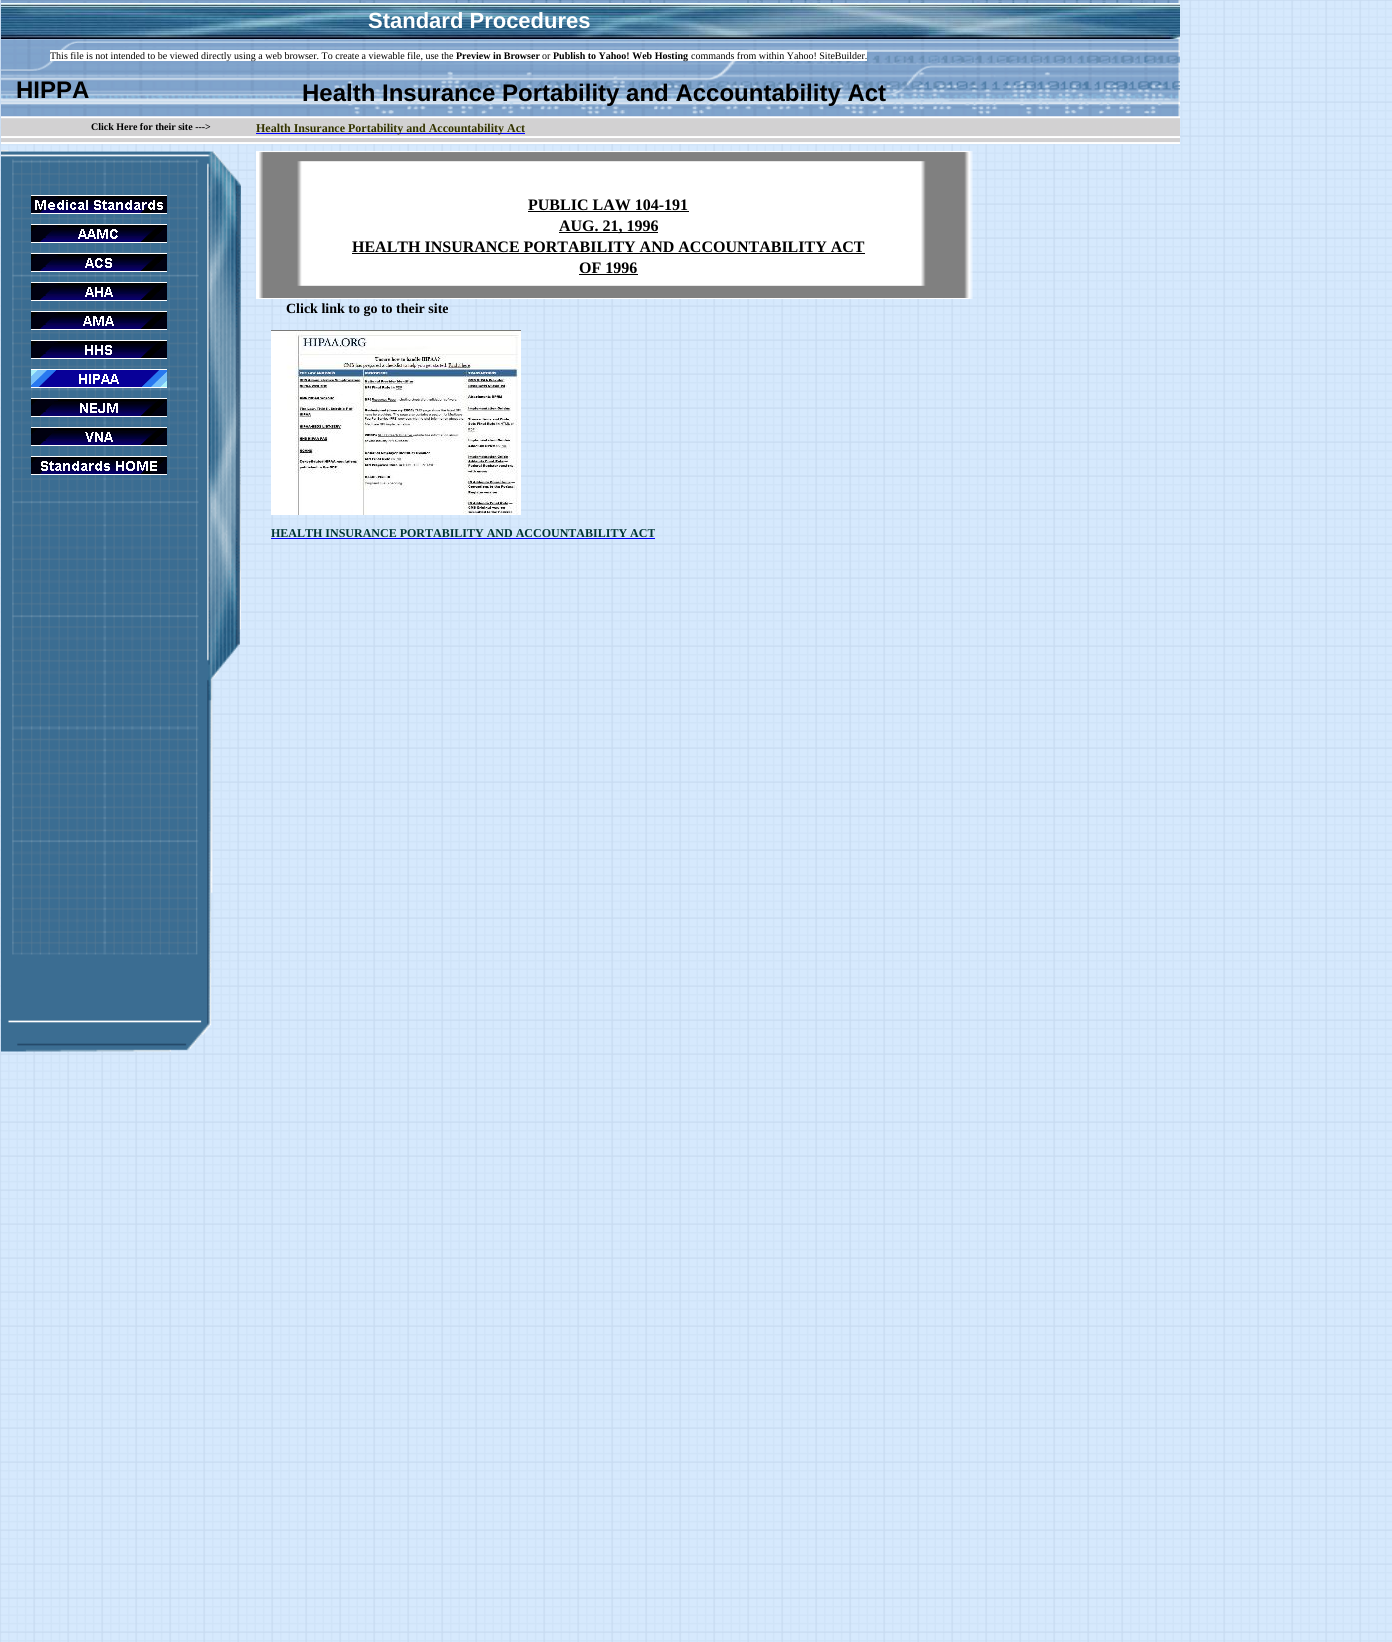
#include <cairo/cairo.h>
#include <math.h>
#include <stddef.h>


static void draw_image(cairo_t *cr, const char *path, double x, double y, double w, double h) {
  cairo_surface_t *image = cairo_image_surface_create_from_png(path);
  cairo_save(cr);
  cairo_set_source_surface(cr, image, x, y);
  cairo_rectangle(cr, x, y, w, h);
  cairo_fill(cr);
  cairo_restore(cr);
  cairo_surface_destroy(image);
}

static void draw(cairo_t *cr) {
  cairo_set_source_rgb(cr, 1, 1, 1);
  cairo_paint(cr);
  draw_image(cr, "images/1.png", 0, 0, 1392, 1642);
  draw_image(cr, "images/2.png", 1, 0, 1179, 144);
  draw_image(cr, "images/3.png", 1, 3, 1179, 36);
  cairo_set_source_rgb(cr, 0, 0, 1);
  cairo_rectangle(cr, 256, 133, 269, 1);
  cairo_fill(cr);
  draw_image(cr, "images/4.png", 1, 150, 240, 902);
  draw_image(cr, "images/5.png", 256, 151, 717, 148);
  draw_image(cr, "images/6.png", 31, 195, 136, 19);
  draw_image(cr, "images/7.png", 31, 224, 136, 19);
  draw_image(cr, "images/8.png", 31, 253, 136, 19);
  draw_image(cr, "images/9.png", 31, 282, 136, 19);
  draw_image(cr, "images/10.png", 31, 311, 136, 19);
  draw_image(cr, "images/11.png", 31, 340, 136, 19);
  draw_image(cr, "images/12.png", 31, 369, 136, 19);
  draw_image(cr, "images/13.png", 31, 398, 136, 19);
  draw_image(cr, "images/14.png", 31, 427, 136, 19);
  draw_image(cr, "images/15.png", 31, 456, 136, 19);
  cairo_set_source_rgb(cr, 0, 0, 0);
  cairo_rectangle(cr, 528, 211, 161, 1);
  cairo_fill(cr);
  cairo_rectangle(cr, 559, 232, 99, 1);
  cairo_fill(cr);
  cairo_rectangle(cr, 352, 253, 513, 1);
  cairo_fill(cr);
  cairo_rectangle(cr, 579, 274, 59, 1);
  cairo_fill(cr);
  draw_image(cr, "images/16.png", 271, 330, 250, 185);
  cairo_set_source_rgb(cr, 0, 0, 1);
  cairo_rectangle(cr, 271, 538, 384, 1);
  cairo_fill(cr);
  cairo_set_source_rgb(cr, 1, 1, 1);
  cairo_rectangle(cr, 50, 50, 817, 11);
  cairo_fill(cr);
  cairo_select_font_face(cr, "Liberation Sans", CAIRO_FONT_SLANT_NORMAL, CAIRO_FONT_WEIGHT_BOLD);
  cairo_set_font_size(cr, 22);
  cairo_move_to(cr, 368, 28);
  cairo_show_text(cr, "Standard Procedures");
  cairo_set_font_size(cr, 24);
  cairo_set_source_rgb(cr, 0, 0, 0);
  cairo_move_to(cr, 16, 98);
  cairo_show_text(cr, "HIPPA");
  cairo_move_to(cr, 302, 101);
  cairo_show_text(cr, "Health Insurance Portability and Accountability Act");
  cairo_select_font_face(cr, "Liberation Serif", CAIRO_FONT_SLANT_NORMAL, CAIRO_FONT_WEIGHT_BOLD);
  cairo_set_font_size(cr, 10);
  cairo_move_to(cr, 91, 130);
  cairo_show_text(cr, "Click Here for their site --->");
  cairo_set_font_size(cr, 12);
  cairo_set_source_rgb(cr, 51 / 255.0, 51 / 255.0, 0);
  cairo_move_to(cr, 256, 132);
  cairo_show_text(cr, "Health Insurance Portability and Accountability Act");
  cairo_set_font_size(cr, 16);
  cairo_set_source_rgb(cr, 0, 0, 0);
  cairo_move_to(cr, 528, 210);
  cairo_show_text(cr, "PUBLIC LAW 104-191");
  cairo_move_to(cr, 559, 231);
  cairo_show_text(cr, "AUG. 21, 1996");
  cairo_move_to(cr, 352, 252);
  cairo_show_text(cr, "HEALTH INSURANCE PORTABILITY AND ACCOUNTABILITY ACT");
  cairo_move_to(cr, 579, 273);
  cairo_show_text(cr, "OF 1996");
  cairo_set_font_size(cr, 14);
  cairo_move_to(cr, 286, 313);
  cairo_show_text(cr, "Click link to go to their site");
  cairo_set_font_size(cr, 12);
  cairo_set_source_rgb(cr, 0, 51 / 255.0, 51 / 255.0);
  cairo_move_to(cr, 271, 537);
  cairo_show_text(cr, "HEALTH INSURANCE PORTABILITY AND ACCOUNTABILITY ACT");
  cairo_select_font_face(cr, "Liberation Serif", CAIRO_FONT_SLANT_NORMAL, CAIRO_FONT_WEIGHT_NORMAL);
  cairo_set_font_size(cr, 10);
  cairo_set_source_rgb(cr, 0, 0, 0);
  cairo_move_to(cr, 50, 59);
  cairo_show_text(cr, "This file is not intended to be viewed directly using a web browser. To create a viewable file, use the");
  cairo_select_font_face(cr, "Liberation Serif", CAIRO_FONT_SLANT_NORMAL, CAIRO_FONT_WEIGHT_BOLD);
  cairo_move_to(cr, 456, 59);
  cairo_show_text(cr, "Preview in Browser");
  cairo_select_font_face(cr, "Liberation Serif", CAIRO_FONT_SLANT_NORMAL, CAIRO_FONT_WEIGHT_NORMAL);
  cairo_move_to(cr, 542, 59);
  cairo_show_text(cr, "or");
  cairo_select_font_face(cr, "Liberation Serif", CAIRO_FONT_SLANT_NORMAL, CAIRO_FONT_WEIGHT_BOLD);
  cairo_move_to(cr, 553, 59);
  cairo_show_text(cr, "Publish to Yahoo! Web Hosting");
  cairo_select_font_face(cr, "Liberation Serif", CAIRO_FONT_SLANT_NORMAL, CAIRO_FONT_WEIGHT_NORMAL);
  cairo_move_to(cr, 691, 59);
  cairo_show_text(cr, "commands from within Yahoo! SiteBuilder.");
}

int main(void) {
  cairo_surface_t *surface = cairo_image_surface_create(CAIRO_FORMAT_RGB24, 1392, 1642);
  cairo_t *cr = cairo_create(surface);
  cairo_font_options_t *options = cairo_font_options_create();
  cairo_font_options_set_hint_metrics(options, CAIRO_HINT_METRICS_OFF);
  cairo_font_options_set_hint_style(options, CAIRO_HINT_STYLE_NONE);
  cairo_set_font_options(cr, options);
  cairo_set_miter_limit(cr, 4);
  draw(cr);
  cairo_surface_write_to_png(surface, "out.png");
  cairo_font_options_destroy(options);
  cairo_destroy(cr);
  cairo_surface_destroy(surface);
  return 0;
}
